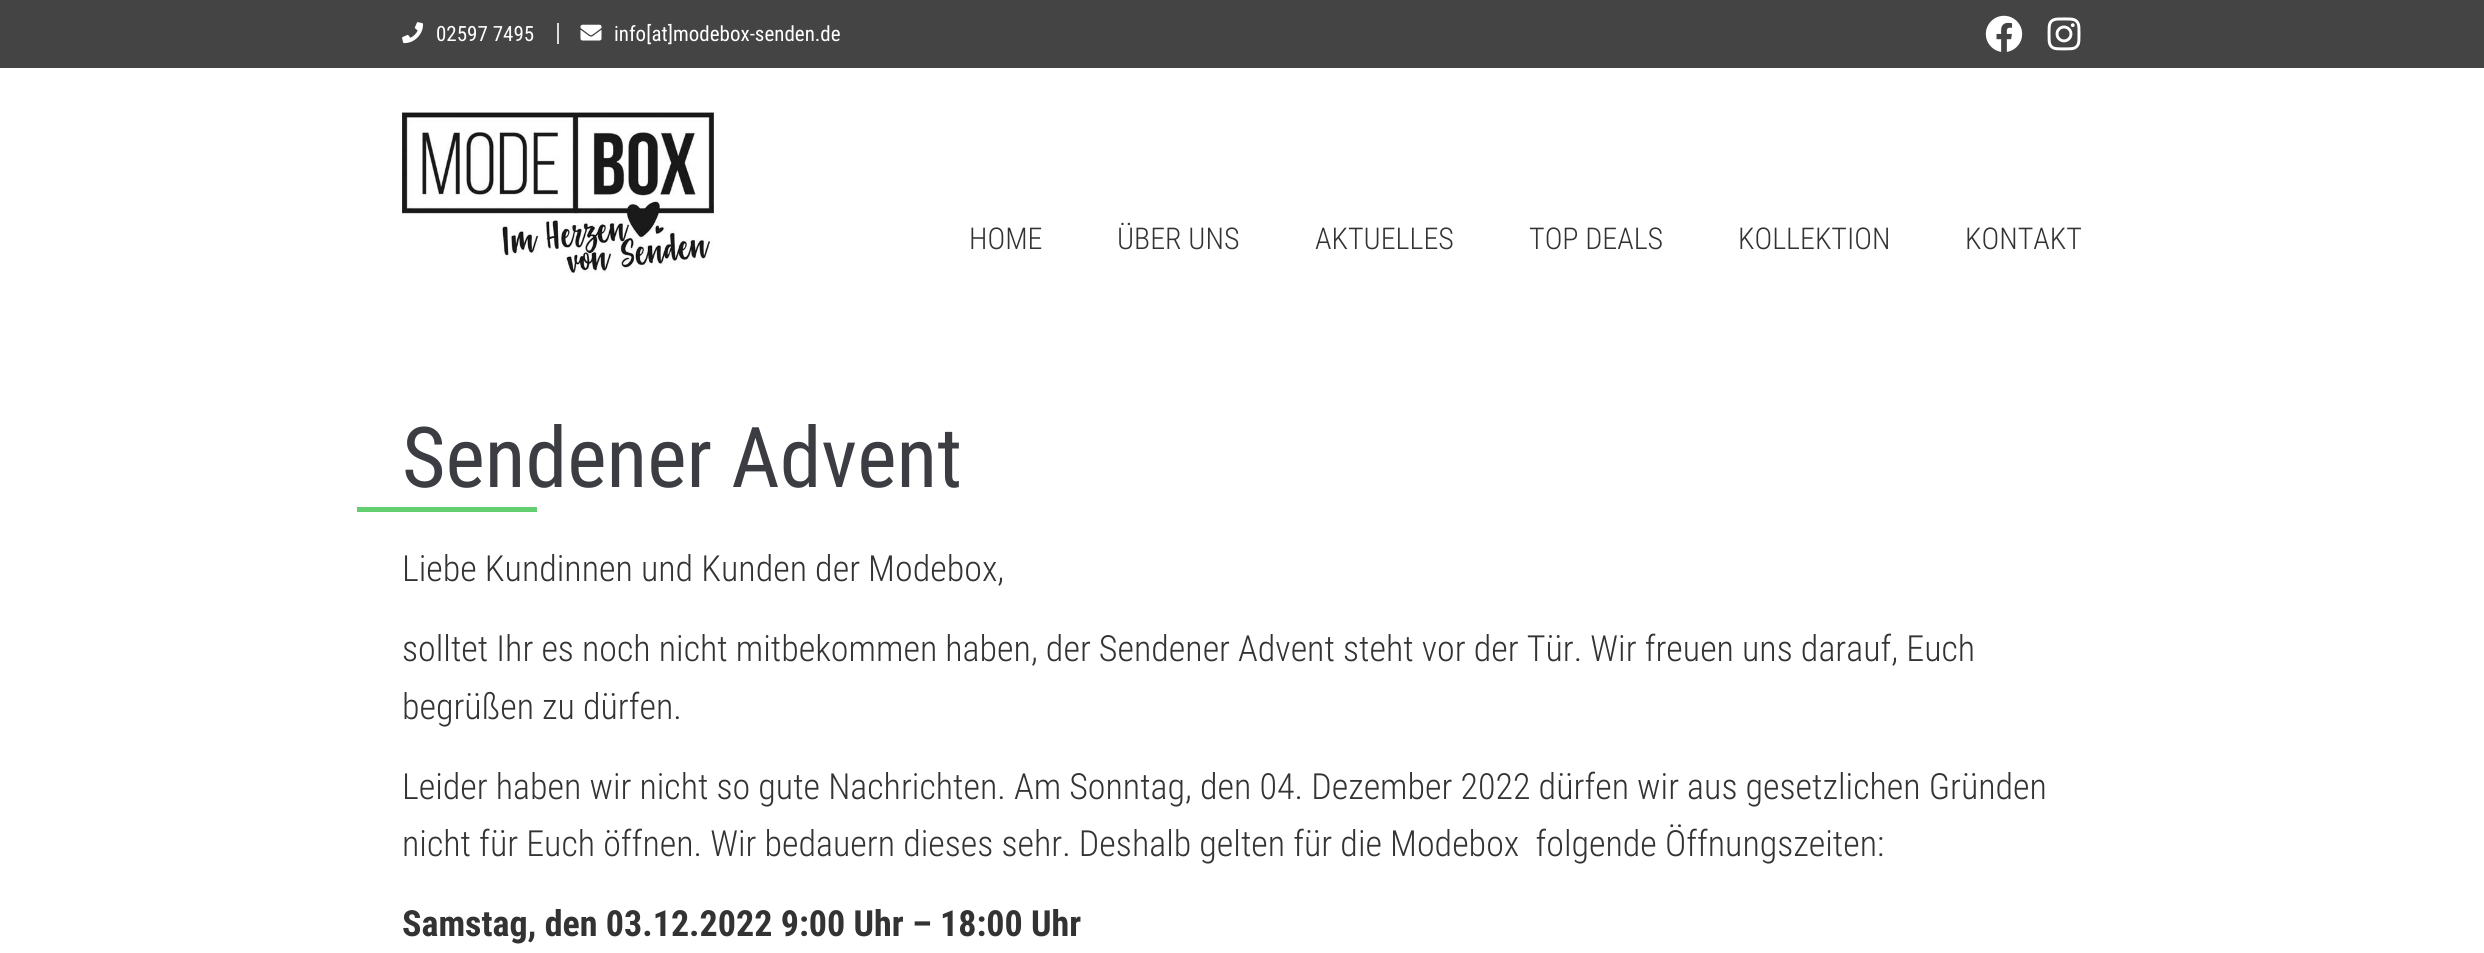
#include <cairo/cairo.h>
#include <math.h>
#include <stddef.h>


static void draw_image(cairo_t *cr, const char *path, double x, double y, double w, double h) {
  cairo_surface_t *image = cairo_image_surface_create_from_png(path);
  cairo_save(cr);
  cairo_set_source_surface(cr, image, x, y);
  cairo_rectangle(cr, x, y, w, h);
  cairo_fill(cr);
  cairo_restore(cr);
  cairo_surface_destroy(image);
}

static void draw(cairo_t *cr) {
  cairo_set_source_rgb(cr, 1, 1, 1);
  cairo_paint(cr);
  cairo_set_source_rgb(cr, 68 / 255.0, 68 / 255.0, 68 / 255.0);
  cairo_rectangle(cr, 0, 0, 2484, 68);
  cairo_fill(cr);
  draw_image(cr, "images/1.png", 402, 22, 21, 22);
  cairo_set_source_rgb(cr, 221 / 255.0, 221 / 255.0, 221 / 255.0);
  cairo_rectangle(cr, 557, 23, 2, 21);
  cairo_fill(cr);
  draw_image(cr, "images/2.png", 580, 24, 22, 17);
  draw_image(cr, "images/3.png", 1985, 15, 38, 37);
  draw_image(cr, "images/4.png", 2047, 17, 34, 34);
  draw_image(cr, "images/5.png", 402, 112, 312, 161);
  cairo_set_source_rgb(cr, 97 / 255.0, 207 / 255.0, 112 / 255.0);
  cairo_rectangle(cr, 357, 507, 180, 5);
  cairo_fill(cr);
  cairo_select_font_face(cr, "Roboto Condensed", CAIRO_FONT_SLANT_NORMAL, CAIRO_FONT_WEIGHT_NORMAL);
  cairo_set_font_size(cr, 21);
  cairo_set_source_rgb(cr, 1, 1, 1);
  cairo_move_to(cr, 436, 41);
  cairo_show_text(cr, "02597 7495");
  cairo_move_to(cr, 614, 41);
  cairo_show_text(cr, "info[at]modebox-senden.de");
  cairo_select_font_face(cr, "Roboto Condensed Light", CAIRO_FONT_SLANT_NORMAL, CAIRO_FONT_WEIGHT_NORMAL);
  cairo_set_font_size(cr, 30);
  cairo_set_source_rgb(cr, 51 / 255.0, 51 / 255.0, 51 / 255.0);
  cairo_move_to(cr, 969, 249);
  cairo_show_text(cr, "HOME");
  cairo_move_to(cr, 1117, 249);
  cairo_show_text(cr, "ÜBER UNS");
  cairo_move_to(cr, 1315, 249);
  cairo_show_text(cr, "AKTUELLES");
  cairo_move_to(cr, 1529, 249);
  cairo_show_text(cr, "TOP DEALS");
  cairo_move_to(cr, 1738, 249);
  cairo_show_text(cr, "KOLLEKTION");
  cairo_move_to(cr, 1965, 249);
  cairo_show_text(cr, "KONTAKT");
  cairo_select_font_face(cr, "Roboto Condensed", CAIRO_FONT_SLANT_NORMAL, CAIRO_FONT_WEIGHT_NORMAL);
  cairo_set_font_size(cr, 84);
  cairo_set_source_rgb(cr, 59 / 255.0, 61 / 255.0, 66 / 255.0);
  cairo_move_to(cr, 402, 487);
  cairo_show_text(cr, "Sendener Advent");
  cairo_select_font_face(cr, "Roboto Condensed Light", CAIRO_FONT_SLANT_NORMAL, CAIRO_FONT_WEIGHT_NORMAL);
  cairo_set_font_size(cr, 36);
  cairo_set_source_rgb(cr, 51 / 255.0, 51 / 255.0, 51 / 255.0);
  cairo_move_to(cr, 402, 581);
  cairo_show_text(cr, "Liebe Kundinnen und Kunden der Modebox,");
  cairo_move_to(cr, 402, 661);
  cairo_show_text(cr, "solltet Ihr es noch nicht mitbekommen haben, der Sendener Advent steht vor der Tür. Wir freuen uns darauf, Euch");
  cairo_move_to(cr, 402, 719);
  cairo_show_text(cr, "begrüßen zu dürfen.");
  cairo_move_to(cr, 402, 799);
  cairo_show_text(cr, "Leider haben wir nicht so gute Nachrichten. Am Sonntag, den 04. Dezember 2022 dürfen wir aus gesetzlichen Gründen");
  cairo_move_to(cr, 402, 856);
  cairo_show_text(cr, "nicht für Euch öffnen. Wir bedauern dieses sehr. Deshalb gelten für die Modebox  folgende Öffnungszeiten:");
  cairo_select_font_face(cr, "Roboto Condensed", CAIRO_FONT_SLANT_NORMAL, CAIRO_FONT_WEIGHT_BOLD);
  cairo_move_to(cr, 402, 936);
  cairo_show_text(cr, "Samstag, den 03.12.2022 9:00 Uhr – 18:00 Uhr");
}

int main(void) {
  cairo_surface_t *surface = cairo_image_surface_create(CAIRO_FORMAT_RGB24, 2484, 953);
  cairo_t *cr = cairo_create(surface);
  cairo_font_options_t *options = cairo_font_options_create();
  cairo_font_options_set_hint_metrics(options, CAIRO_HINT_METRICS_OFF);
  cairo_font_options_set_hint_style(options, CAIRO_HINT_STYLE_NONE);
  cairo_set_font_options(cr, options);
  cairo_set_miter_limit(cr, 4);
  draw(cr);
  cairo_surface_write_to_png(surface, "out.png");
  cairo_font_options_destroy(options);
  cairo_destroy(cr);
  cairo_surface_destroy(surface);
  return 0;
}
